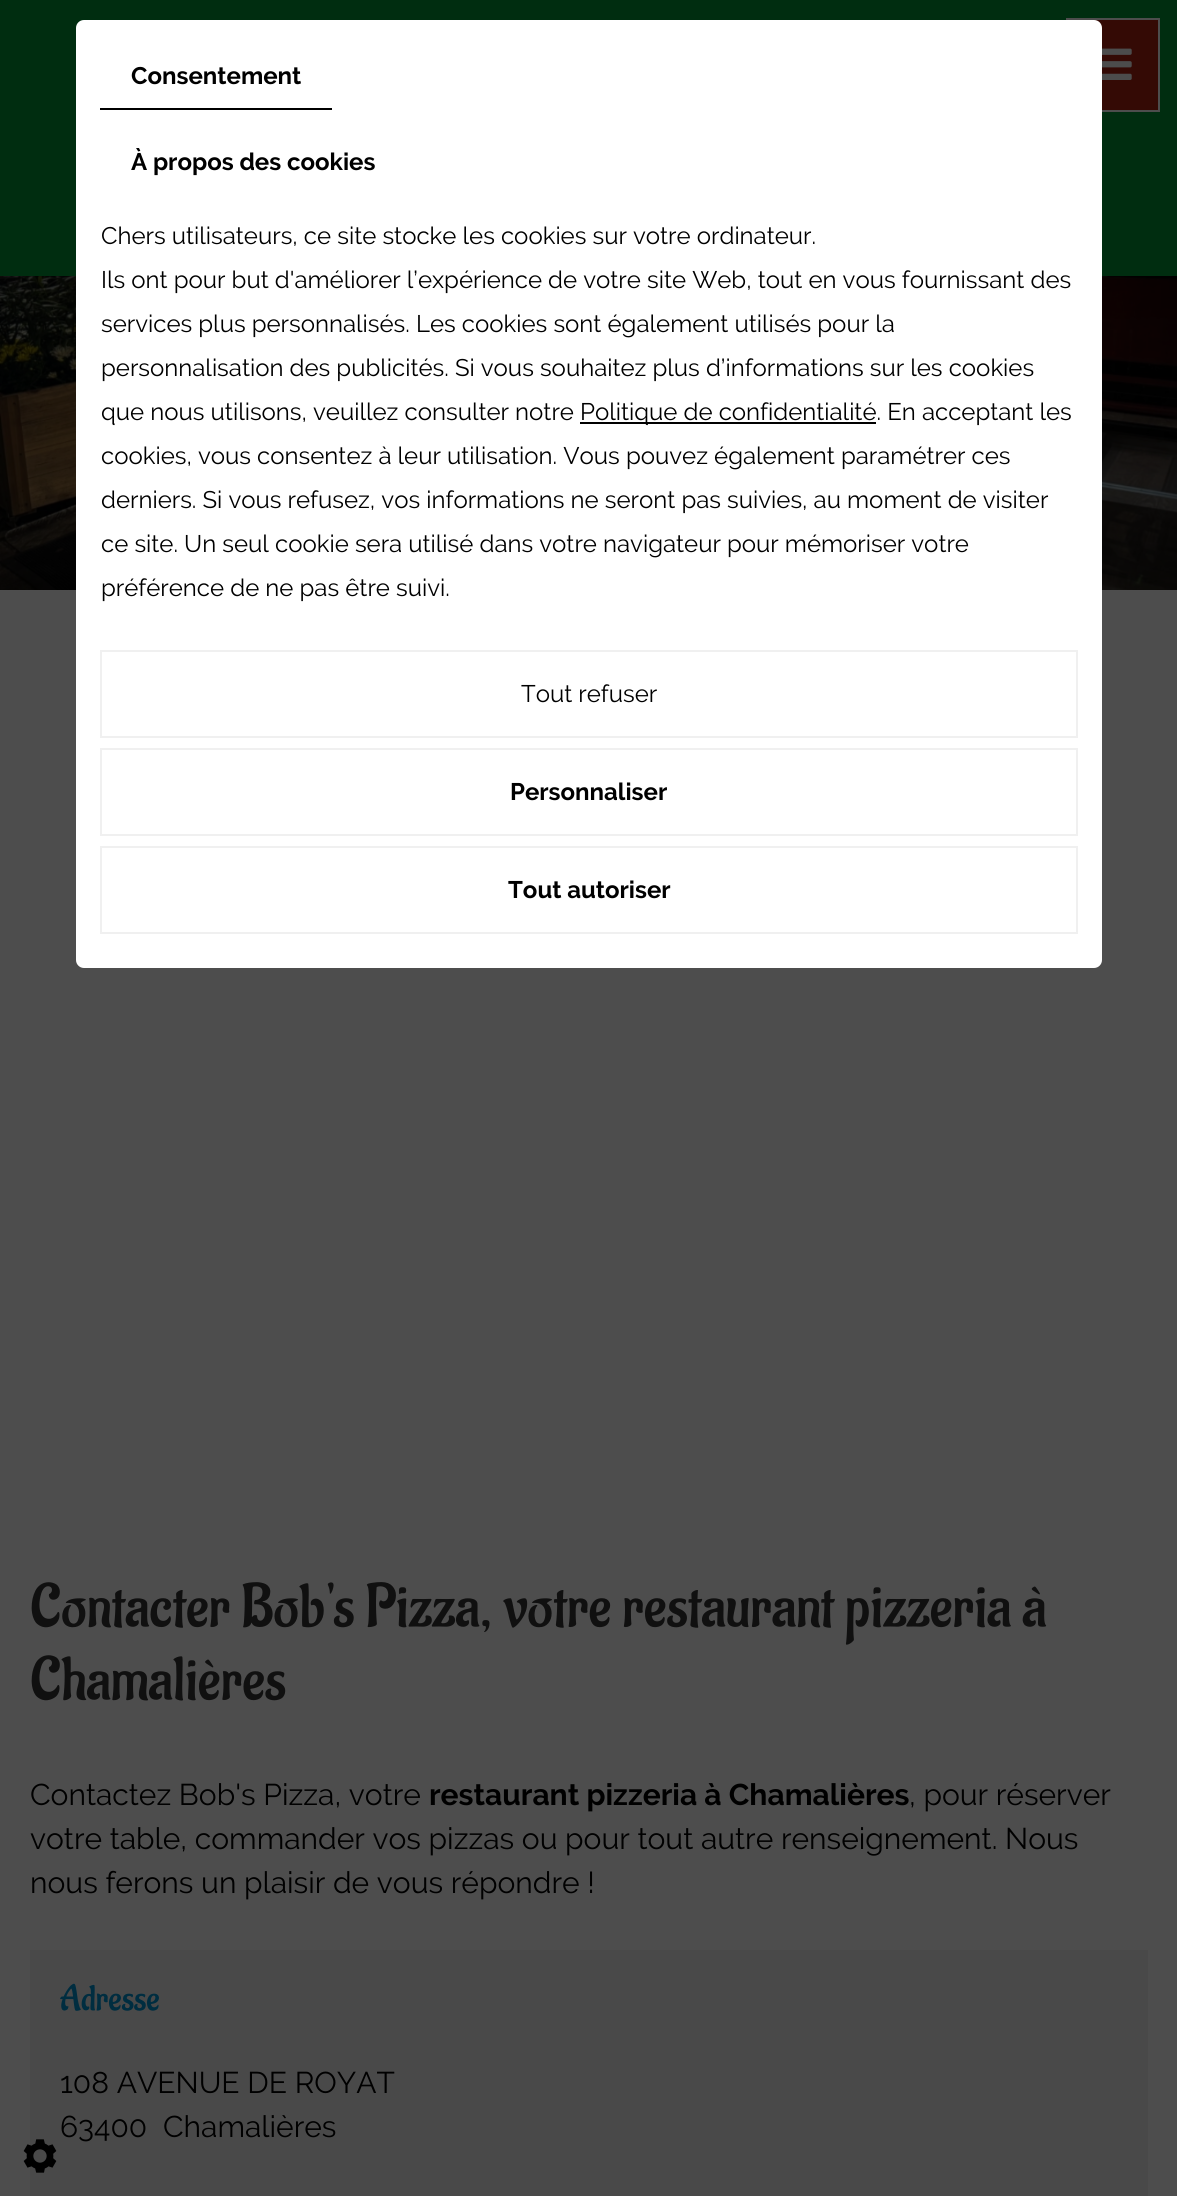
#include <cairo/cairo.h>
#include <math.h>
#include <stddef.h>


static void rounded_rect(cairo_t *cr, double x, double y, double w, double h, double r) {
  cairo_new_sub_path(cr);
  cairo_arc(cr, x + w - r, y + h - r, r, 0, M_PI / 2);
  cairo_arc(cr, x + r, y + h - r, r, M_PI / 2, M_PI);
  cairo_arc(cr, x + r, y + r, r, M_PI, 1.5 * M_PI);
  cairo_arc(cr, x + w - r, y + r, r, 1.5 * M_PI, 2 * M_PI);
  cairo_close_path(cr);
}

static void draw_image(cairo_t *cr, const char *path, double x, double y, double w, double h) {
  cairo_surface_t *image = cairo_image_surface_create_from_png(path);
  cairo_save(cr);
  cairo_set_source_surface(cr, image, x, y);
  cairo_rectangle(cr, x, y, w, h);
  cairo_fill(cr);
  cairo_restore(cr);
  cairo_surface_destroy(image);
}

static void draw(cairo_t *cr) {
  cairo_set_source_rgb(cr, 77 / 255.0, 77 / 255.0, 77 / 255.0);
  cairo_paint(cr);
  draw_image(cr, "images/1.png", 0, 276, 1177, 314);
  draw_image(cr, "images/2.png", 0, 276, 1177, 201);
  cairo_set_source_rgb(cr, 0, 45 / 255.0, 16 / 255.0);
  cairo_rectangle(cr, 0, 0, 1177, 276);
  cairo_fill(cr);
  cairo_rectangle(cr, 1067, 19, 92, 92);
  cairo_set_source_rgb(cr, 77 / 255.0, 77 / 255.0, 77 / 255.0);
  cairo_stroke(cr);
  cairo_set_source_rgb(cr, 52 / 255.0, 10 / 255.0, 5 / 255.0);
  cairo_rectangle(cr, 1094, 20, 64, 90);
  cairo_fill(cr);
  cairo_set_source_rgb(cr, 1, 1, 1);
  rounded_rect(cr, 76, 20, 1026, 948, 8);
  cairo_fill(cr);
  cairo_set_source_rgb(cr, 0, 0, 0);
  cairo_rectangle(cr, 100, 108, 232, 2);
  cairo_fill(cr);
  cairo_rectangle(cr, 580, 422, 296, 2);
  cairo_fill(cr);
  cairo_rectangle(cr, 101, 651, 976, 86);
  cairo_set_source_rgb(cr, 240 / 255.0, 240 / 255.0, 240 / 255.0);
  cairo_stroke(cr);
  cairo_rectangle(cr, 101, 749, 976, 86);
  cairo_stroke(cr);
  cairo_rectangle(cr, 101, 847, 976, 86);
  cairo_stroke(cr);
  draw_image(cr, "images/3.png", 1102, 48, 30, 32);
  cairo_set_source_rgb(cr, 73 / 255.0, 73 / 255.0, 73 / 255.0);
  cairo_rectangle(cr, 30, 1950, 1118, 246);
  cairo_fill(cr);
  draw_image(cr, "images/4.png", 23, 2139, 34, 34);
  cairo_select_font_face(cr, "Raleway", CAIRO_FONT_SLANT_NORMAL, CAIRO_FONT_WEIGHT_BOLD);
  cairo_set_font_size(cr, 24);
  cairo_set_source_rgb(cr, 0, 0, 0);
  cairo_move_to(cr, 131, 84);
  cairo_show_text(cr, "Consentement");
  cairo_move_to(cr, 131, 170);
  cairo_show_text(cr, "À propos des cookies");
  cairo_select_font_face(cr, "Raleway", CAIRO_FONT_SLANT_NORMAL, CAIRO_FONT_WEIGHT_NORMAL);
  cairo_move_to(cr, 101, 244);
  cairo_show_text(cr, "Chers utilisateurs, ce site stocke les cookies sur votre ordinateur.");
  cairo_move_to(cr, 101, 288);
  cairo_show_text(cr, "Ils ont pour but d'améliorer l’expérience de votre site Web, tout en vous fournissant des");
  cairo_move_to(cr, 101, 332);
  cairo_show_text(cr, "services plus personnalisés. Les cookies sont également utilisés pour la");
  cairo_move_to(cr, 101, 376);
  cairo_show_text(cr, "personnalisation des publicités. Si vous souhaitez plus d’informations sur les cookies");
  cairo_move_to(cr, 101, 420);
  cairo_show_text(cr, "que nous utilisons, veuillez consulter notre");
  cairo_move_to(cr, 580, 420);
  cairo_show_text(cr, "Politique de confidentialité. En acceptant les");
  cairo_move_to(cr, 101, 464);
  cairo_show_text(cr, "cookies, vous consentez à leur utilisation. Vous pouvez également paramétrer ces");
  cairo_move_to(cr, 101, 508);
  cairo_show_text(cr, "derniers. Si vous refusez, vos informations ne seront pas suivies, au moment de visiter");
  cairo_move_to(cr, 101, 552);
  cairo_show_text(cr, "ce site. Un seul cookie sera utilisé dans votre navigateur pour mémoriser votre");
  cairo_move_to(cr, 101, 596);
  cairo_show_text(cr, "préférence de ne pas être suivi.");
  cairo_move_to(cr, 521, 702);
  cairo_show_text(cr, "Tout refuser");
  cairo_select_font_face(cr, "Raleway", CAIRO_FONT_SLANT_NORMAL, CAIRO_FONT_WEIGHT_BOLD);
  cairo_move_to(cr, 510, 800);
  cairo_show_text(cr, "Personnaliser");
  cairo_move_to(cr, 508, 898);
  cairo_show_text(cr, "Tout autoriser");
  cairo_select_font_face(cr, "Aladin", CAIRO_FONT_SLANT_NORMAL, CAIRO_FONT_WEIGHT_NORMAL);
  cairo_set_font_size(cr, 61.25);
  cairo_set_source_rgb(cr, 16 / 255.0, 16 / 255.0, 16 / 255.0);
  cairo_move_to(cr, 30, 1626);
  cairo_show_text(cr, "Contacter Bob's Pizza, votre restaurant pizzeria à");
  cairo_move_to(cr, 30, 1699);
  cairo_show_text(cr, "Chamalières");
  cairo_select_font_face(cr, "Raleway", CAIRO_FONT_SLANT_NORMAL, CAIRO_FONT_WEIGHT_NORMAL);
  cairo_set_font_size(cr, 30);
  cairo_set_source_rgb(cr, 0, 0, 0);
  cairo_move_to(cr, 30, 1805);
  cairo_show_text(cr, "Contactez Bob's Pizza, votre");
  cairo_select_font_face(cr, "Raleway", CAIRO_FONT_SLANT_NORMAL, CAIRO_FONT_WEIGHT_BOLD);
  cairo_move_to(cr, 429, 1805);
  cairo_show_text(cr, "restaurant pizzeria à Chamalières");
  cairo_select_font_face(cr, "Raleway", CAIRO_FONT_SLANT_NORMAL, CAIRO_FONT_WEIGHT_NORMAL);
  cairo_move_to(cr, 909, 1805);
  cairo_show_text(cr, ", pour réserver");
  cairo_move_to(cr, 30, 1849);
  cairo_show_text(cr, "votre table, commander vos pizzas ou pour tout autre renseignement. Nous");
  cairo_move_to(cr, 30, 1893);
  cairo_show_text(cr, "nous ferons un plaisir de vous répondre !");
  cairo_select_font_face(cr, "Aladin", CAIRO_FONT_SLANT_NORMAL, CAIRO_FONT_WEIGHT_NORMAL);
  cairo_set_font_size(cr, 36);
  cairo_set_source_rgb(cr, 0, 45 / 255.0, 64 / 255.0);
  cairo_move_to(cr, 60, 2010);
  cairo_show_text(cr, "Adresse");
  cairo_select_font_face(cr, "Raleway", CAIRO_FONT_SLANT_NORMAL, CAIRO_FONT_WEIGHT_NORMAL);
  cairo_set_font_size(cr, 30);
  cairo_set_source_rgb(cr, 0, 0, 0);
  cairo_move_to(cr, 60, 2093);
  cairo_show_text(cr, "108 AVENUE DE ROYAT");
  cairo_move_to(cr, 60, 2137);
  cairo_show_text(cr, "63400");
  cairo_move_to(cr, 163, 2137);
  cairo_show_text(cr, "Chamalières");
}

int main(void) {
  cairo_surface_t *surface = cairo_image_surface_create(CAIRO_FORMAT_RGB24, 1177, 2196);
  cairo_t *cr = cairo_create(surface);
  cairo_font_options_t *options = cairo_font_options_create();
  cairo_font_options_set_hint_metrics(options, CAIRO_HINT_METRICS_OFF);
  cairo_font_options_set_hint_style(options, CAIRO_HINT_STYLE_NONE);
  cairo_set_font_options(cr, options);
  cairo_set_miter_limit(cr, 4);
  draw(cr);
  cairo_surface_write_to_png(surface, "out.png");
  cairo_font_options_destroy(options);
  cairo_destroy(cr);
  cairo_surface_destroy(surface);
  return 0;
}
